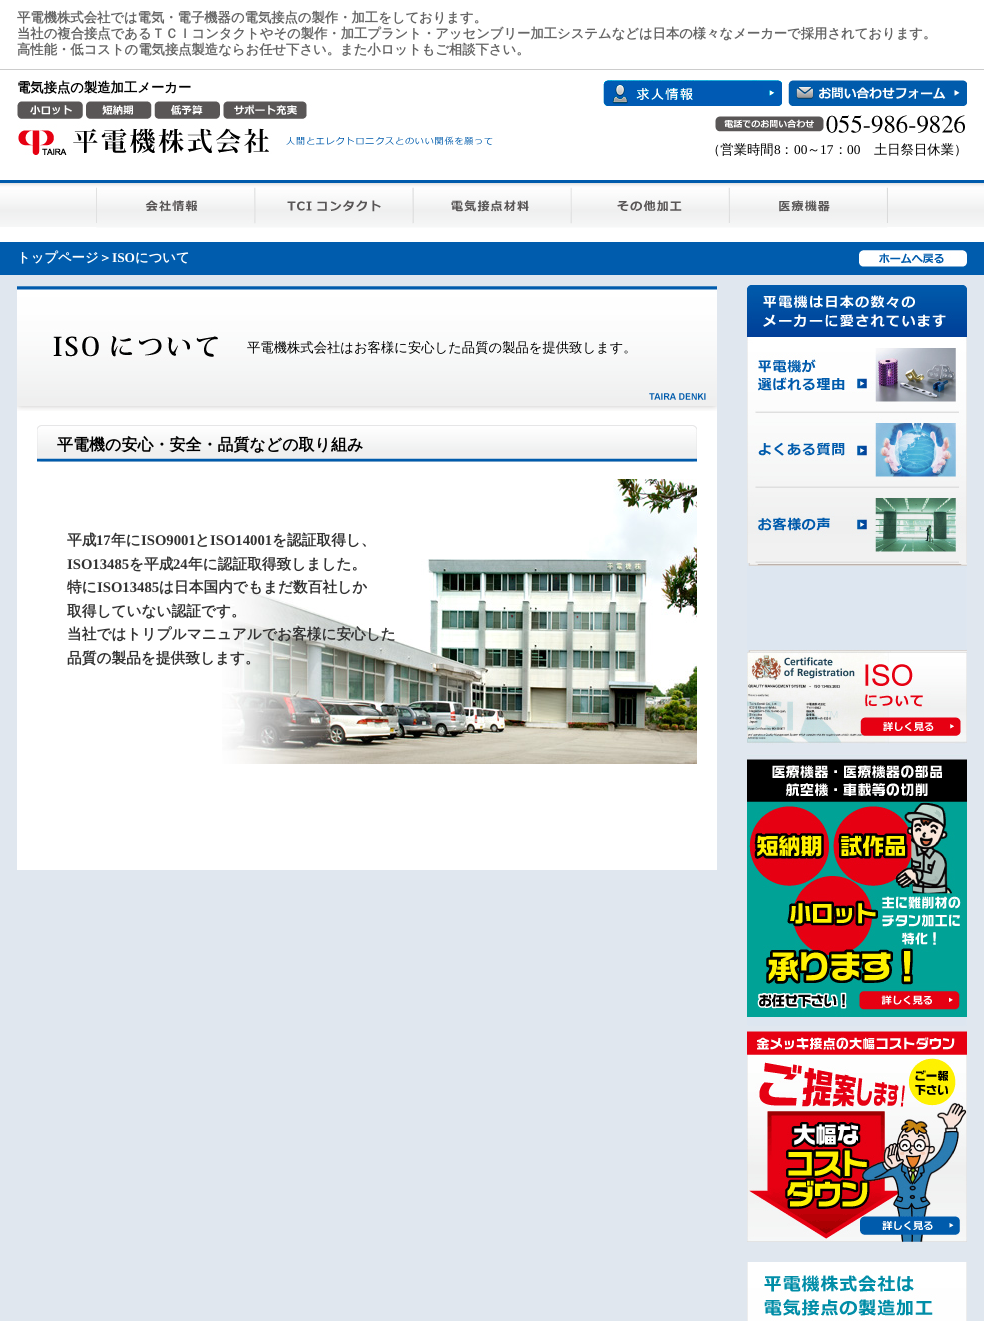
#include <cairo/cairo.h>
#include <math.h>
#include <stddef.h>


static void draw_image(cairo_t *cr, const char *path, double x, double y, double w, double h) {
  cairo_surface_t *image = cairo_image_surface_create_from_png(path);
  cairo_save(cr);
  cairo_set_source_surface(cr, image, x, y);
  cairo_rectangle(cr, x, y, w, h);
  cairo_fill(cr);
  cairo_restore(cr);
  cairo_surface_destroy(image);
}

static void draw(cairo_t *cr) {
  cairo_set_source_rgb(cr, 1, 1, 1);
  cairo_paint(cr);
  cairo_set_source_rgb(cr, 204 / 255.0, 204 / 255.0, 204 / 255.0);
  cairo_rectangle(cr, 0, 69, 984, 1);
  cairo_fill(cr);
  draw_image(cr, "images/1.png", 17, 101, 480, 54);
  draw_image(cr, "images/2.png", 603, 80, 179, 26);
  draw_image(cr, "images/3.png", 788, 80, 179, 26);
  draw_image(cr, "images/4.png", 715, 115, 250, 18);
  draw_image(cr, "images/5.png", 0, 180, 984, 47);
  draw_image(cr, "images/6.png", 96, 212, 792, 16);
  draw_image(cr, "images/7.png", 96, 183, 159, 40);
  draw_image(cr, "images/8.png", 255, 183, 159, 40);
  draw_image(cr, "images/9.png", 414, 183, 158, 29);
  draw_image(cr, "images/10.png", 572, 183, 158, 41);
  draw_image(cr, "images/11.png", 730, 183, 158, 40);
  cairo_set_source_rgb(cr, 0, 92 / 255.0, 173 / 255.0);
  cairo_rectangle(cr, 0, 242, 984, 33);
  cairo_fill(cr);
  draw_image(cr, "images/12.png", 859, 250, 108, 17);
  cairo_set_source_rgb(cr, 224 / 255.0, 231 / 255.0, 239 / 255.0);
  cairo_rectangle(cr, 0, 275, 984, 1046);
  cairo_fill(cr);
  cairo_set_source_rgb(cr, 1, 1, 1);
  cairo_rectangle(cr, 17, 411, 700, 459);
  cairo_fill(cr);
  draw_image(cr, "images/13.png", 17, 285, 700, 126);
  draw_image(cr, "images/14.png", 37, 425, 660, 37);
  draw_image(cr, "images/15.png", 222, 479, 475, 285);
  draw_image(cr, "images/16.png", 747, 285, 220, 52);
  draw_image(cr, "images/17.png", 747, 563, 220, 463);
  draw_image(cr, "images/18.png", 747, 337, 220, 76);
  draw_image(cr, "images/19.png", 747, 413, 220, 75);
  draw_image(cr, "images/20.png", 747, 488, 220, 75);
  draw_image(cr, "images/21.png", 747, 652, 220, 91);
  draw_image(cr, "images/22.png", 747, 743, 220, 274);
  draw_image(cr, "images/23.png", 747, 1026, 220, 216);
  draw_image(cr, "images/24.png", 747, 1262, 220, 59);
  cairo_select_font_face(cr, "WenQuanYi Zen Hei", CAIRO_FONT_SLANT_NORMAL, CAIRO_FONT_WEIGHT_BOLD);
  cairo_set_font_size(cr, 13.33);
  cairo_set_source_rgb(cr, 102 / 255.0, 102 / 255.0, 102 / 255.0);
  cairo_move_to(cr, 17, 22);
  cairo_show_text(cr, "平電機株式会社では電気・電子機器の電気接点の製作・加工をしております。");
  cairo_move_to(cr, 17, 38);
  cairo_show_text(cr, "当社の複合接点であるＴＣＩコンタクトやその製作・加工プラント・アッセンブリー加工システムなどは日本の様々なメーカーで採用されております。");
  cairo_move_to(cr, 17, 54);
  cairo_show_text(cr, "高性能・低コストの電気接点製造ならお任せ下さい。また小ロットもご相談下さい。");
  cairo_set_source_rgb(cr, 0, 0, 0);
  cairo_move_to(cr, 17, 92);
  cairo_show_text(cr, "電気接点の製造加工メーカー");
  cairo_select_font_face(cr, "WenQuanYi Zen Hei Medium", CAIRO_FONT_SLANT_NORMAL, CAIRO_FONT_WEIGHT_NORMAL);
  cairo_move_to(cr, 707, 154);
  cairo_show_text(cr, "（営業時間");
  cairo_select_font_face(cr, "Liberation Serif", CAIRO_FONT_SLANT_NORMAL, CAIRO_FONT_WEIGHT_NORMAL);
  cairo_move_to(cr, 774, 154);
  cairo_show_text(cr, "8");
  cairo_select_font_face(cr, "WenQuanYi Zen Hei Medium", CAIRO_FONT_SLANT_NORMAL, CAIRO_FONT_WEIGHT_NORMAL);
  cairo_move_to(cr, 780, 154);
  cairo_show_text(cr, "：");
  cairo_select_font_face(cr, "Liberation Serif", CAIRO_FONT_SLANT_NORMAL, CAIRO_FONT_WEIGHT_NORMAL);
  cairo_move_to(cr, 794, 154);
  cairo_show_text(cr, "00");
  cairo_select_font_face(cr, "WenQuanYi Zen Hei Medium", CAIRO_FONT_SLANT_NORMAL, CAIRO_FONT_WEIGHT_NORMAL);
  cairo_move_to(cr, 807, 154);
  cairo_show_text(cr, "～");
  cairo_select_font_face(cr, "Liberation Serif", CAIRO_FONT_SLANT_NORMAL, CAIRO_FONT_WEIGHT_NORMAL);
  cairo_move_to(cr, 820, 154);
  cairo_show_text(cr, "17");
  cairo_select_font_face(cr, "WenQuanYi Zen Hei Medium", CAIRO_FONT_SLANT_NORMAL, CAIRO_FONT_WEIGHT_NORMAL);
  cairo_move_to(cr, 834, 154);
  cairo_show_text(cr, "：");
  cairo_select_font_face(cr, "Liberation Serif", CAIRO_FONT_SLANT_NORMAL, CAIRO_FONT_WEIGHT_NORMAL);
  cairo_move_to(cr, 847, 154);
  cairo_show_text(cr, "00");
  cairo_select_font_face(cr, "WenQuanYi Zen Hei Medium", CAIRO_FONT_SLANT_NORMAL, CAIRO_FONT_WEIGHT_NORMAL);
  cairo_move_to(cr, 874, 154);
  cairo_show_text(cr, "土日祭日休業）");
  cairo_select_font_face(cr, "WenQuanYi Zen Hei", CAIRO_FONT_SLANT_NORMAL, CAIRO_FONT_WEIGHT_BOLD);
  cairo_set_source_rgb(cr, 1, 1, 1);
  cairo_move_to(cr, 17, 262);
  cairo_show_text(cr, "トップページ＞");
  cairo_select_font_face(cr, "Liberation Serif", CAIRO_FONT_SLANT_NORMAL, CAIRO_FONT_WEIGHT_BOLD);
  cairo_move_to(cr, 112, 262);
  cairo_show_text(cr, "ISO");
  cairo_select_font_face(cr, "WenQuanYi Zen Hei", CAIRO_FONT_SLANT_NORMAL, CAIRO_FONT_WEIGHT_BOLD);
  cairo_move_to(cr, 135, 262);
  cairo_show_text(cr, "について");
  cairo_select_font_face(cr, "WenQuanYi Zen Hei Medium", CAIRO_FONT_SLANT_NORMAL, CAIRO_FONT_WEIGHT_NORMAL);
  cairo_set_source_rgb(cr, 0, 0, 0);
  cairo_move_to(cr, 247, 352);
  cairo_show_text(cr, "平電機株式会社はお客様に安心した品質の製品を提供致します。");
  cairo_select_font_face(cr, "WenQuanYi Zen Hei", CAIRO_FONT_SLANT_NORMAL, CAIRO_FONT_WEIGHT_BOLD);
  cairo_set_font_size(cr, 16);
  cairo_move_to(cr, 57, 450);
  cairo_show_text(cr, "平電機の安心・安全・品質などの取り組み");
  cairo_set_font_size(cr, 14.7);
  cairo_set_source_rgb(cr, 51 / 255.0, 51 / 255.0, 51 / 255.0);
  cairo_move_to(cr, 67, 545);
  cairo_show_text(cr, "平成");
  cairo_select_font_face(cr, "Liberation Serif", CAIRO_FONT_SLANT_NORMAL, CAIRO_FONT_WEIGHT_BOLD);
  cairo_move_to(cr, 96, 545);
  cairo_show_text(cr, "17");
  cairo_select_font_face(cr, "WenQuanYi Zen Hei", CAIRO_FONT_SLANT_NORMAL, CAIRO_FONT_WEIGHT_BOLD);
  cairo_move_to(cr, 111, 545);
  cairo_show_text(cr, "年に");
  cairo_select_font_face(cr, "Liberation Serif", CAIRO_FONT_SLANT_NORMAL, CAIRO_FONT_WEIGHT_BOLD);
  cairo_move_to(cr, 141, 545);
  cairo_show_text(cr, "ISO9001");
  cairo_select_font_face(cr, "WenQuanYi Zen Hei", CAIRO_FONT_SLANT_NORMAL, CAIRO_FONT_WEIGHT_BOLD);
  cairo_move_to(cr, 195, 545);
  cairo_show_text(cr, "と");
  cairo_select_font_face(cr, "Liberation Serif", CAIRO_FONT_SLANT_NORMAL, CAIRO_FONT_WEIGHT_BOLD);
  cairo_move_to(cr, 210, 545);
  cairo_show_text(cr, "ISO14001");
  cairo_select_font_face(cr, "WenQuanYi Zen Hei", CAIRO_FONT_SLANT_NORMAL, CAIRO_FONT_WEIGHT_BOLD);
  cairo_move_to(cr, 272, 545);
  cairo_show_text(cr, "を認証取得し、");
  cairo_select_font_face(cr, "Liberation Serif", CAIRO_FONT_SLANT_NORMAL, CAIRO_FONT_WEIGHT_BOLD);
  cairo_move_to(cr, 67, 569);
  cairo_show_text(cr, "ISO13485");
  cairo_select_font_face(cr, "WenQuanYi Zen Hei", CAIRO_FONT_SLANT_NORMAL, CAIRO_FONT_WEIGHT_BOLD);
  cairo_move_to(cr, 129, 569);
  cairo_show_text(cr, "を平成");
  cairo_select_font_face(cr, "Liberation Serif", CAIRO_FONT_SLANT_NORMAL, CAIRO_FONT_WEIGHT_BOLD);
  cairo_move_to(cr, 173, 569);
  cairo_show_text(cr, "24");
  cairo_select_font_face(cr, "WenQuanYi Zen Hei", CAIRO_FONT_SLANT_NORMAL, CAIRO_FONT_WEIGHT_BOLD);
  cairo_move_to(cr, 188, 569);
  cairo_show_text(cr, "年に認証取得致しました。");
  cairo_move_to(cr, 67, 592);
  cairo_show_text(cr, "特に");
  cairo_select_font_face(cr, "Liberation Serif", CAIRO_FONT_SLANT_NORMAL, CAIRO_FONT_WEIGHT_BOLD);
  cairo_move_to(cr, 97, 592);
  cairo_show_text(cr, "ISO13485");
  cairo_select_font_face(cr, "WenQuanYi Zen Hei", CAIRO_FONT_SLANT_NORMAL, CAIRO_FONT_WEIGHT_BOLD);
  cairo_move_to(cr, 159, 592);
  cairo_show_text(cr, "は日本国内でもまだ数百社しか");
  cairo_move_to(cr, 67, 616);
  cairo_show_text(cr, "取得していない認証です。");
  cairo_move_to(cr, 67, 639);
  cairo_show_text(cr, "当社ではトリプルマニュアルでお客様に安心した");
  cairo_move_to(cr, 67, 663);
  cairo_show_text(cr, "品質の製品を提供致します。");
}

int main(void) {
  cairo_surface_t *surface = cairo_image_surface_create(CAIRO_FORMAT_RGB24, 984, 1321);
  cairo_t *cr = cairo_create(surface);
  cairo_font_options_t *options = cairo_font_options_create();
  cairo_font_options_set_hint_metrics(options, CAIRO_HINT_METRICS_OFF);
  cairo_font_options_set_hint_style(options, CAIRO_HINT_STYLE_NONE);
  cairo_set_font_options(cr, options);
  cairo_set_miter_limit(cr, 4);
  draw(cr);
  cairo_surface_write_to_png(surface, "out.png");
  cairo_font_options_destroy(options);
  cairo_destroy(cr);
  cairo_surface_destroy(surface);
  return 0;
}
